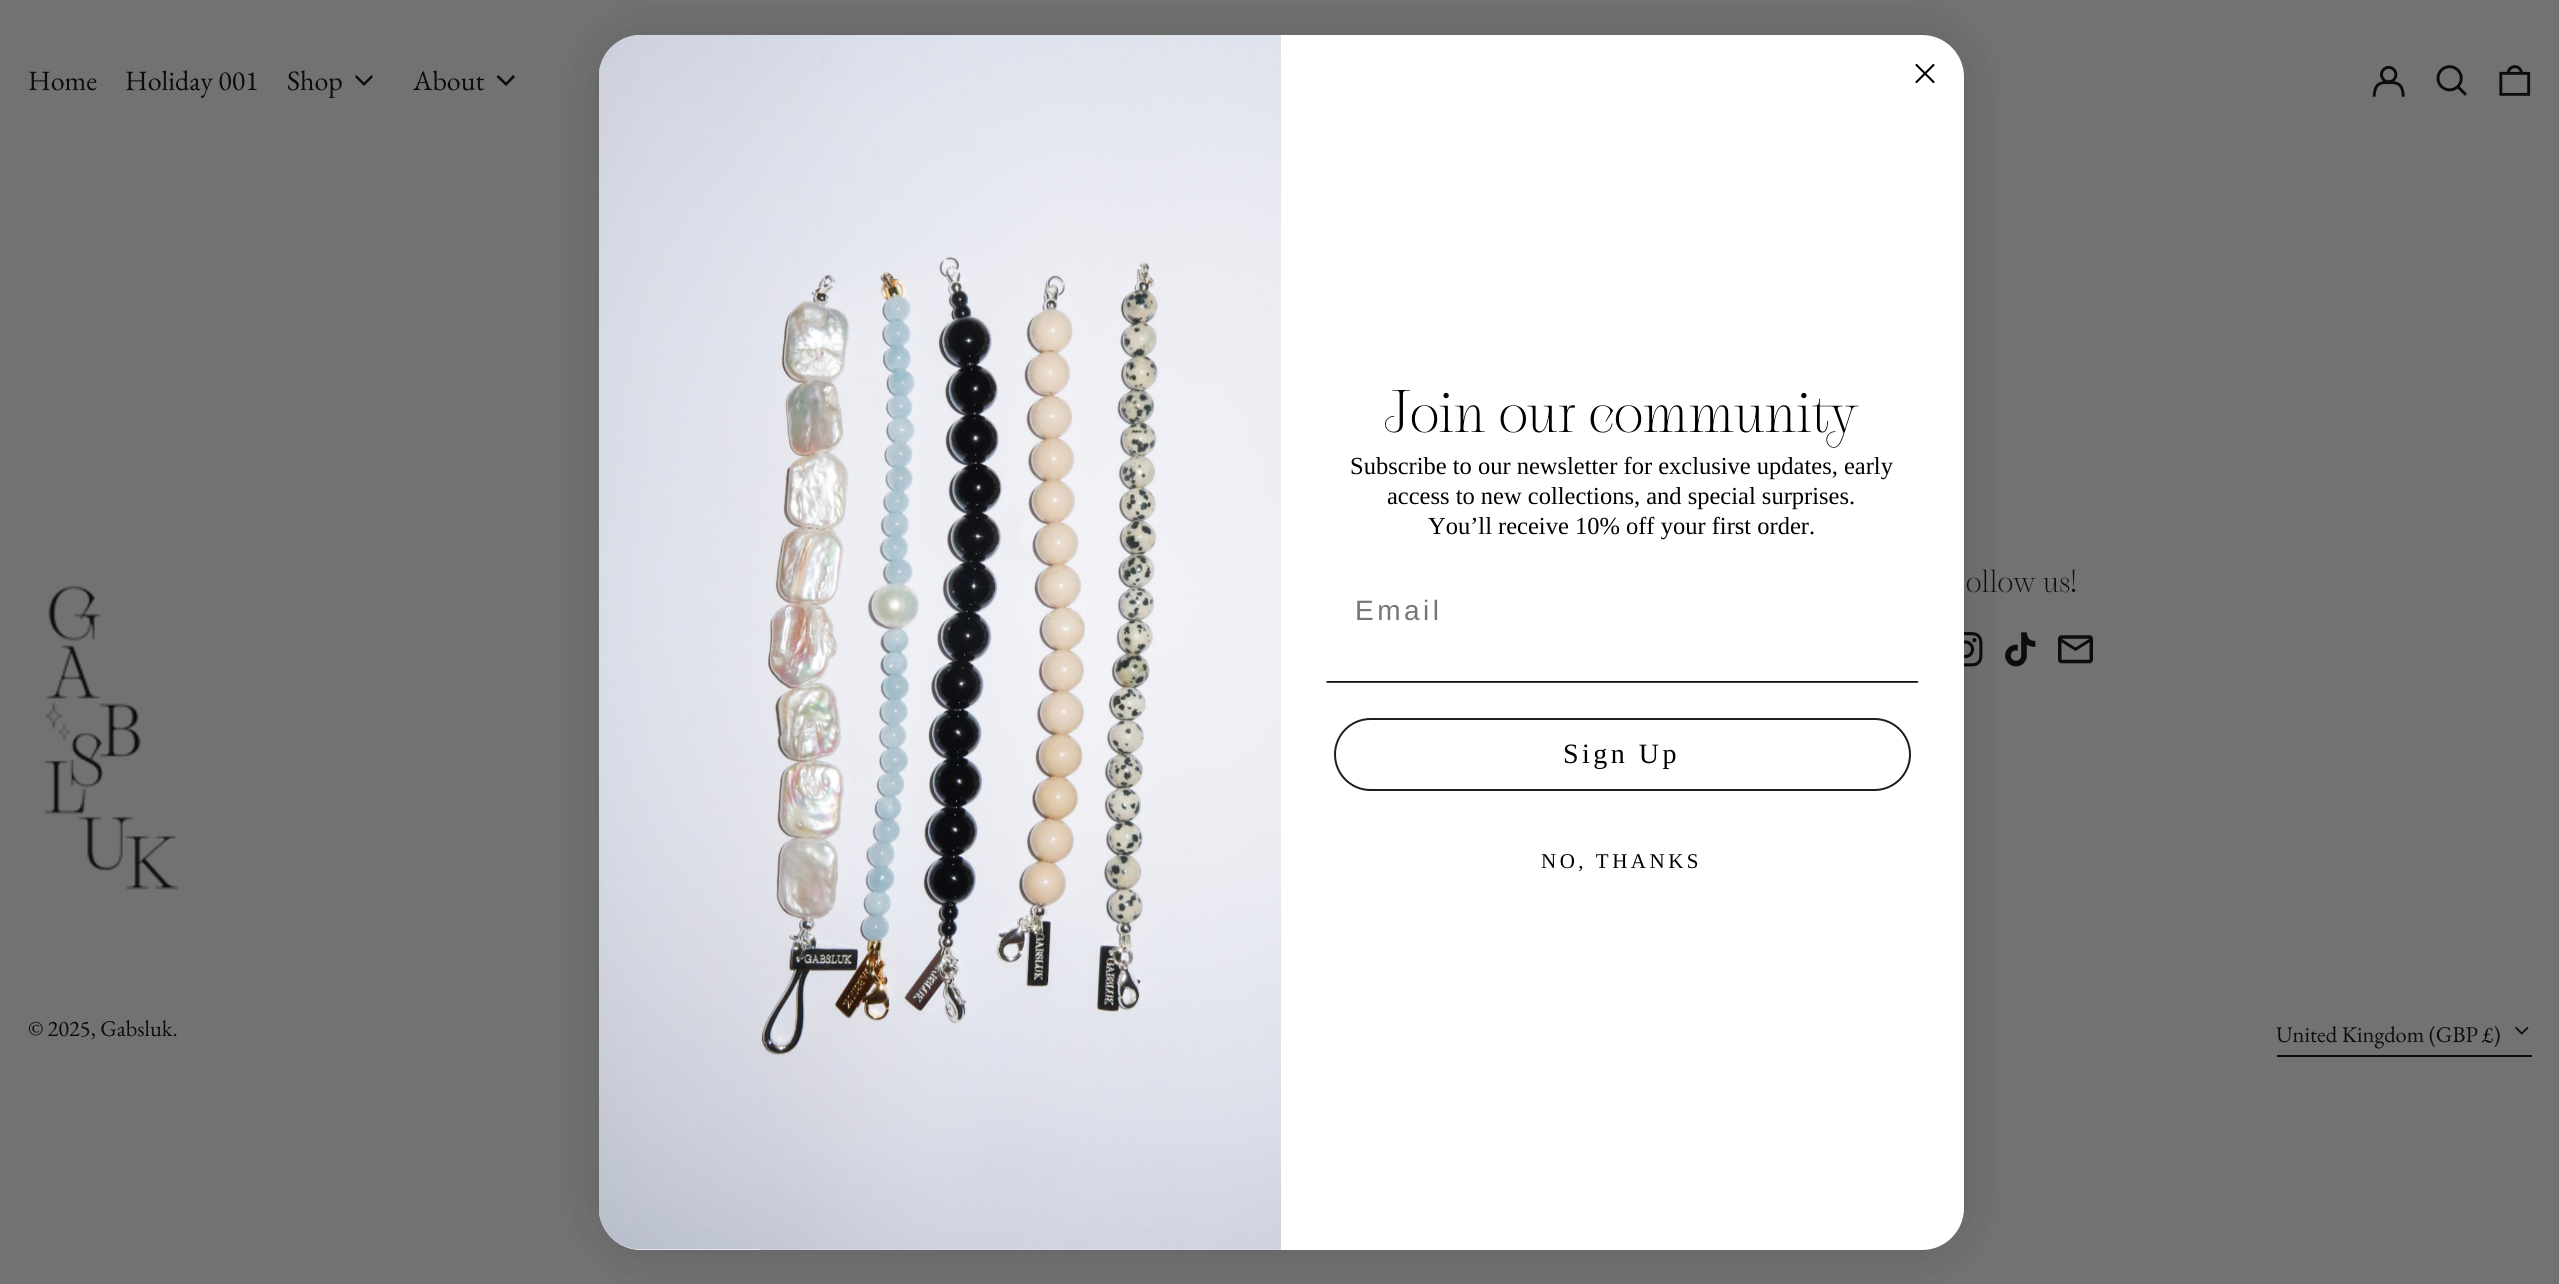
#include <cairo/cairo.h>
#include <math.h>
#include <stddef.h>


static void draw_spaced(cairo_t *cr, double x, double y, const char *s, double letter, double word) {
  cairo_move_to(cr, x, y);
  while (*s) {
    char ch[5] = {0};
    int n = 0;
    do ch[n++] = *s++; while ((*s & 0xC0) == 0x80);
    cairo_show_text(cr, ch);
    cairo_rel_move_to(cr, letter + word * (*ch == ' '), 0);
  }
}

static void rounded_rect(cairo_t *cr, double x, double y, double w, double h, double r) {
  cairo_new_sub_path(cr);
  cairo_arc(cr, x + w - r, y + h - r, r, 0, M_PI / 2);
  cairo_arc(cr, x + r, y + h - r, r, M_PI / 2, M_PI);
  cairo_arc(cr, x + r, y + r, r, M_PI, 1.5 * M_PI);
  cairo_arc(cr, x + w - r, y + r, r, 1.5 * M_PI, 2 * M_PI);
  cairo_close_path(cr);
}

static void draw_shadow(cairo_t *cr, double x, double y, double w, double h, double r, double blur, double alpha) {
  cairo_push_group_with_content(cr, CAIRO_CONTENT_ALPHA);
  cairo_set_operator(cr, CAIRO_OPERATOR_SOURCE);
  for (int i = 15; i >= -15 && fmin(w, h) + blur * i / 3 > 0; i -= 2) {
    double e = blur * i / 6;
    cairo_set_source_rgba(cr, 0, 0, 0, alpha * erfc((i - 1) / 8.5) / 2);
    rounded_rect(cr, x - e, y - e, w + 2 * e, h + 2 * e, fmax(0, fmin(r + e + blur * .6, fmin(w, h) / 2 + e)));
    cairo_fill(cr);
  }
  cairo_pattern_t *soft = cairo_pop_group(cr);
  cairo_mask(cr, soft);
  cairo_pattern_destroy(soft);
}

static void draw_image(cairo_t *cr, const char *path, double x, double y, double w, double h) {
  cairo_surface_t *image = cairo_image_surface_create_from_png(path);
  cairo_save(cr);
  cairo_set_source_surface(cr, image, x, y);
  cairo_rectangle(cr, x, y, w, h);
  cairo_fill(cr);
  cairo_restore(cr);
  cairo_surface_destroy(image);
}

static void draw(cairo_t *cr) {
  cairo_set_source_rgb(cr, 114 / 255.0, 114 / 255.0, 114 / 255.0);
  cairo_paint(cr);
  cairo_set_source_rgb(cr, 12 / 255.0, 12 / 255.0, 12 / 255.0);
  cairo_set_fill_rule(cr, CAIRO_FILL_RULE_EVEN_ODD);
  cairo_new_path(cr);
  cairo_move_to(cr, 364, 86);
  cairo_line_to(cr, 355, 77);
  cairo_line_to(cr, 356.5, 75);
  cairo_line_to(cr, 364, 82.5);
  cairo_line_to(cr, 371.5, 75);
  cairo_line_to(cr, 373, 77);
  cairo_close_path(cr);
  cairo_fill(cr);
  cairo_new_path(cr);
  cairo_move_to(cr, 506, 86);
  cairo_line_to(cr, 496.5, 77);
  cairo_line_to(cr, 498.5, 75);
  cairo_line_to(cr, 506, 82.5);
  cairo_line_to(cr, 513, 75);
  cairo_line_to(cr, 515, 77);
  cairo_close_path(cr);
  cairo_fill(cr);
  draw_image(cr, "images/1.png", 2372, 65, 33, 32);
  draw_image(cr, "images/2.png", 2436, 65, 31, 31);
  draw_image(cr, "images/3.png", 2499, 65, 32, 31);
  draw_image(cr, "images/4.png", 1964, 632, 19, 35);
  draw_image(cr, "images/5.png", 2005, 632, 31, 35);
  draw_image(cr, "images/6.png", 2058, 635, 35, 29);
  draw_image(cr, "images/7.png", 44, 585, 135, 305);
  cairo_rectangle(cr, 2277, 1055, 255, 2);
  cairo_fill(cr);
  draw_image(cr, "images/8.png", 2515, 1026, 14, 9);
  cairo_set_source_rgb(cr, 0, 0, 0);
  draw_shadow(cr, 599, 35, 1365, 1215, 42, 26, 0.15);
  cairo_set_source_rgb(cr, 1, 1, 1);
  rounded_rect(cr, 599, 35, 1365, 1215, 42);
  cairo_fill(cr);
  cairo_new_path(cr);
  cairo_move_to(cr, 1916.5, 65);
  cairo_line_to(cr, 1933.5, 82);
  cairo_move_to(cr, 1916.5, 82);
  cairo_line_to(cr, 1933.5, 65);
  cairo_close_path(cr);
  cairo_set_source_rgb(cr, 0, 0, 0);
  cairo_set_line_width(cr, 2.1);
  cairo_set_line_cap(cr, CAIRO_LINE_CAP_ROUND);
  cairo_set_line_join(cr, CAIRO_LINE_JOIN_ROUND);
  cairo_stroke(cr);
  draw_image(cr, "images/9.png", 599, 35, 682, 1215);
  draw_image(cr, "images/10.png", 1325, 681, 594, 2);
  rounded_rect(cr, 1335, 719, 575, 71, 35.5);
  cairo_set_source_rgb(cr, 33 / 255.0, 29 / 255.0, 28 / 255.0);
  cairo_set_line_width(cr, 2);
  cairo_set_line_cap(cr, CAIRO_LINE_CAP_BUTT);
  cairo_set_line_join(cr, CAIRO_LINE_JOIN_MITER);
  cairo_stroke(cr);
  cairo_select_font_face(cr, "EB Garamond", CAIRO_FONT_SLANT_NORMAL, CAIRO_FONT_WEIGHT_NORMAL);
  cairo_set_font_size(cr, 28);
  cairo_set_source_rgb(cr, 12 / 255.0, 12 / 255.0, 12 / 255.0);
  cairo_move_to(cr, 28, 90);
  cairo_show_text(cr, "Home");
  cairo_move_to(cr, 125, 90);
  cairo_show_text(cr, "Holiday 001");
  cairo_move_to(cr, 287, 90);
  cairo_show_text(cr, "Shop");
  cairo_move_to(cr, 413, 90);
  cairo_show_text(cr, "About");
  cairo_select_font_face(cr, "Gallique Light", CAIRO_FONT_SLANT_NORMAL, CAIRO_FONT_WEIGHT_NORMAL);
  cairo_move_to(cr, 1966, 592);
  cairo_show_text(cr, "ollow us!");
  cairo_select_font_face(cr, "EB Garamond", CAIRO_FONT_SLANT_NORMAL, CAIRO_FONT_WEIGHT_NORMAL);
  cairo_set_font_size(cr, 22.5);
  cairo_move_to(cr, 28, 1036);
  cairo_show_text(cr, "© 2025, Gabsluk.");
  cairo_move_to(cr, 2276, 1042);
  cairo_show_text(cr, "United Kingdom (GBP £)");
  cairo_select_font_face(cr, "Gallique Light", CAIRO_FONT_SLANT_NORMAL, CAIRO_FONT_WEIGHT_NORMAL);
  cairo_set_font_size(cr, 52.5);
  cairo_set_source_rgb(cr, 0, 0, 0);
  cairo_move_to(cr, 1384, 432);
  cairo_show_text(cr, "Join our community");
  cairo_select_font_face(cr, "Liberation Serif", CAIRO_FONT_SLANT_NORMAL, CAIRO_FONT_WEIGHT_NORMAL);
  cairo_set_font_size(cr, 24.5);
  cairo_move_to(cr, 1350, 474);
  cairo_show_text(cr, "Subscribe to our newsletter for exclusive updates, early");
  cairo_move_to(cr, 1387, 504);
  cairo_show_text(cr, "access to new collections, and special surprises.");
  cairo_move_to(cr, 1428, 534);
  cairo_show_text(cr, "You’ll receive 10% off your first order.");
  cairo_select_font_face(cr, "Liberation Sans", CAIRO_FONT_SLANT_NORMAL, CAIRO_FONT_WEIGHT_NORMAL);
  cairo_set_font_size(cr, 28);
  cairo_set_source_rgb(cr, 118 / 255.0, 118 / 255.0, 118 / 255.0);
  draw_spaced(cr, 1355, 620, "Email", 3.5, 0);
  cairo_select_font_face(cr, "Liberation Serif", CAIRO_FONT_SLANT_NORMAL, CAIRO_FONT_WEIGHT_NORMAL);
  cairo_set_source_rgb(cr, 0, 0, 0);
  draw_spaced(cr, 1563, 763, "Sign Up", 3.5, 0);
  cairo_set_font_size(cr, 21);
  draw_spaced(cr, 1541, 868, "NO, THANKS", 3.5, 0);
}

int main(void) {
  cairo_surface_t *surface = cairo_image_surface_create(CAIRO_FORMAT_RGB24, 2559, 1284);
  cairo_t *cr = cairo_create(surface);
  cairo_font_options_t *options = cairo_font_options_create();
  cairo_font_options_set_hint_metrics(options, CAIRO_HINT_METRICS_OFF);
  cairo_font_options_set_hint_style(options, CAIRO_HINT_STYLE_NONE);
  cairo_set_font_options(cr, options);
  cairo_set_miter_limit(cr, 4);
  draw(cr);
  cairo_surface_write_to_png(surface, "out.png");
  cairo_font_options_destroy(options);
  cairo_destroy(cr);
  cairo_surface_destroy(surface);
  return 0;
}
